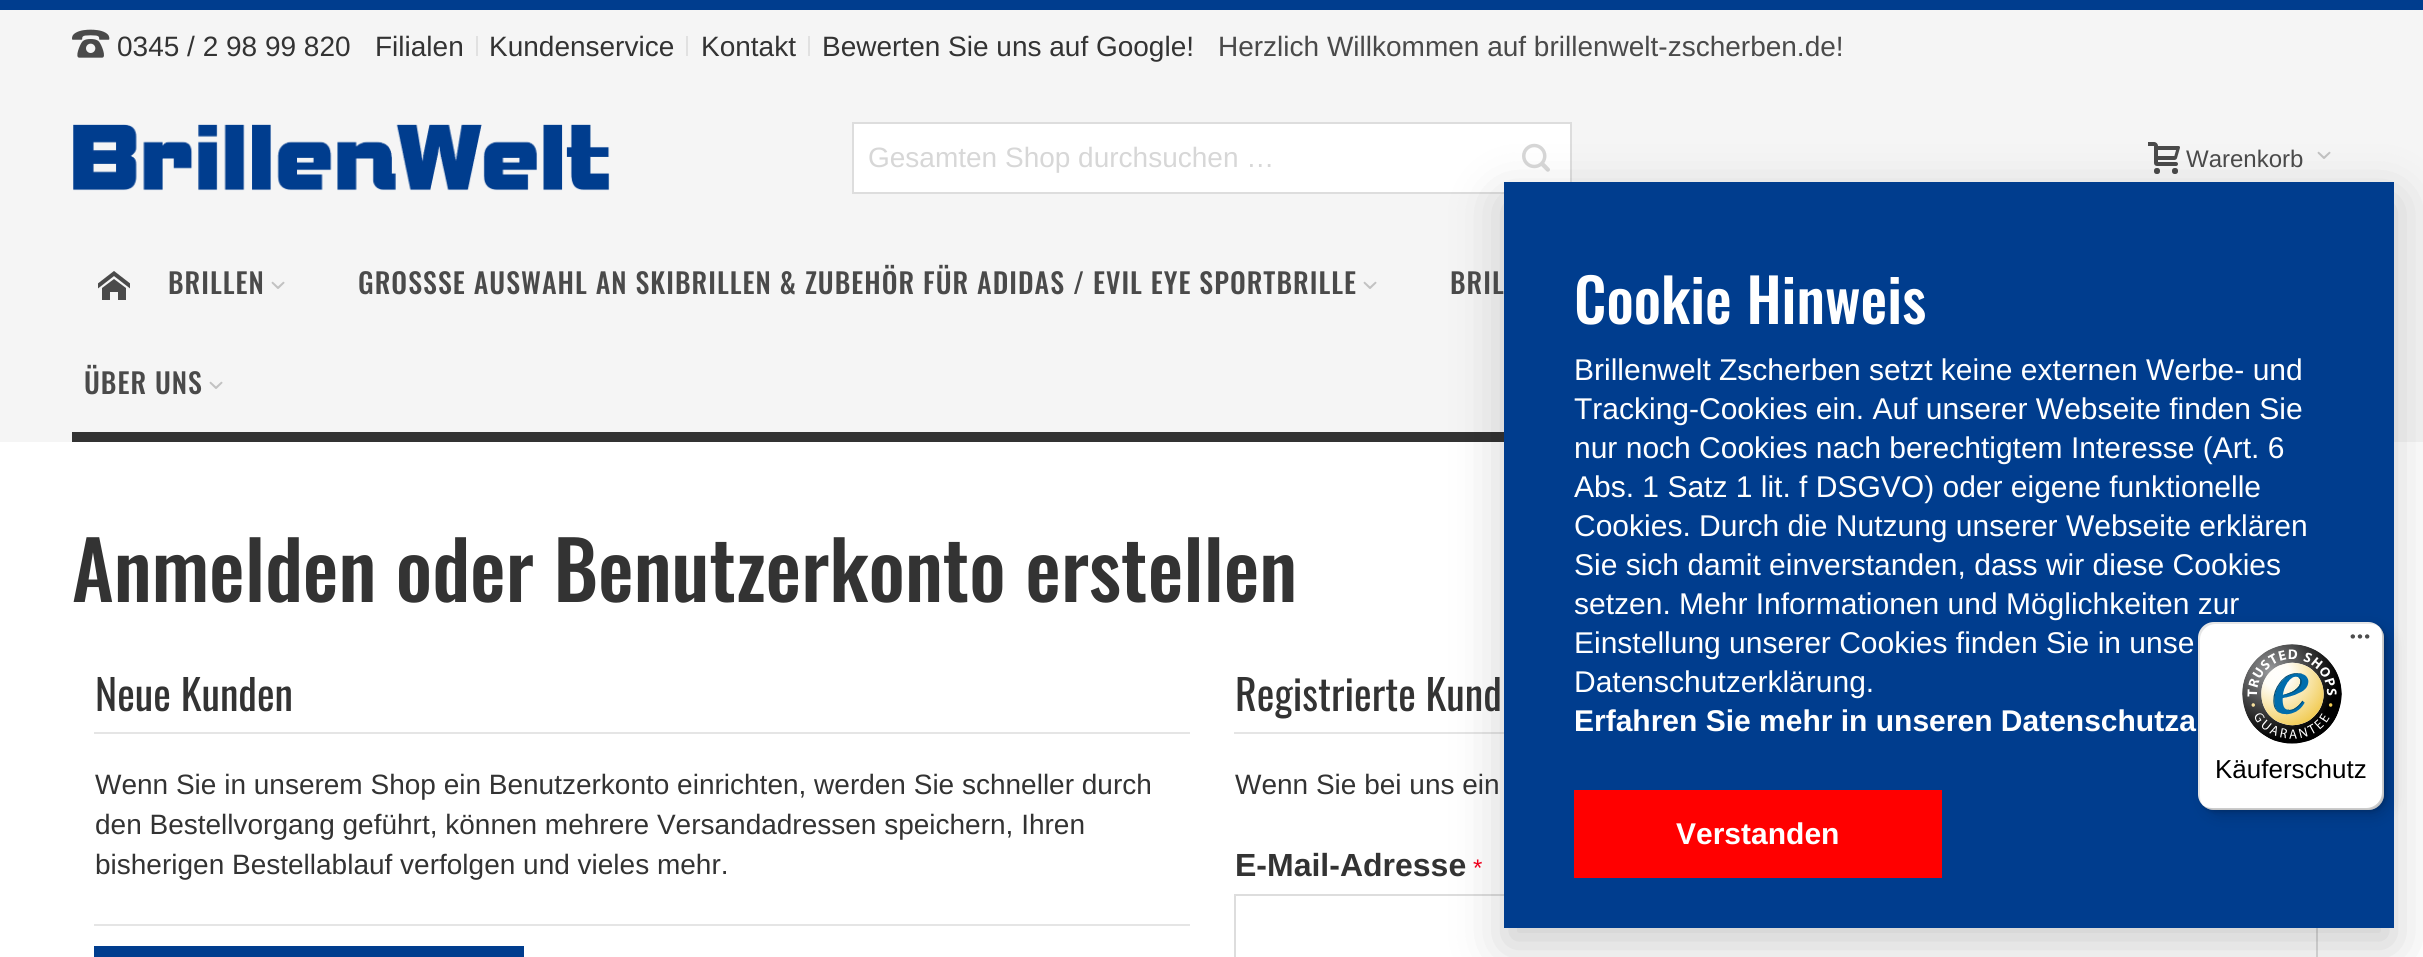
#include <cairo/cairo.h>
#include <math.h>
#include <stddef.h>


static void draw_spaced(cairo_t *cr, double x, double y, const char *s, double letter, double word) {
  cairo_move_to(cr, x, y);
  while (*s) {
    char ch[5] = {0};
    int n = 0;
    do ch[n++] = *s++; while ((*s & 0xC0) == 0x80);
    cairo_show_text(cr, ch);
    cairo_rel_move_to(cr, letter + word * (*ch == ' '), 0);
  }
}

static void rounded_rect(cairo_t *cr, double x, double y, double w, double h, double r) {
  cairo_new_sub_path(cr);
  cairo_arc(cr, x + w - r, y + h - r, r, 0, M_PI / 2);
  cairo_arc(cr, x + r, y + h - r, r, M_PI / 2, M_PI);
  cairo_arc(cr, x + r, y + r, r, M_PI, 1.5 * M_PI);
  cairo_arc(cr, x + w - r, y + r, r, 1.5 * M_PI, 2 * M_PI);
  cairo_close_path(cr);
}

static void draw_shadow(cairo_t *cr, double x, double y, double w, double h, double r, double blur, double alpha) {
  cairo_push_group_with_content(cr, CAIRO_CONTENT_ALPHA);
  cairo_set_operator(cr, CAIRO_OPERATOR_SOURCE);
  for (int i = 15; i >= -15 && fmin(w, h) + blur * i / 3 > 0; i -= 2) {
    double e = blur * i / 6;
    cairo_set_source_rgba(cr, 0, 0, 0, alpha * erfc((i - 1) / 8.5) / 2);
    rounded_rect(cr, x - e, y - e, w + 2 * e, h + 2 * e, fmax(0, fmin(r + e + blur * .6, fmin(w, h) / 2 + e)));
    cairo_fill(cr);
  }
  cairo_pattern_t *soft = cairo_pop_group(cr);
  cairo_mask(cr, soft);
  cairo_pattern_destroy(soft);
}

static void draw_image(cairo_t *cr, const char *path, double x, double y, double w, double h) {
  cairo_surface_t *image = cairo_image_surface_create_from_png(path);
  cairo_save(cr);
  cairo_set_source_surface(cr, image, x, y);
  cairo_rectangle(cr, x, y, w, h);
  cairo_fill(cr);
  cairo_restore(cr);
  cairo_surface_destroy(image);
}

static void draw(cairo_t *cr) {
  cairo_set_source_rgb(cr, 1, 1, 1);
  cairo_paint(cr);
  cairo_set_source_rgb(cr, 0, 61 / 255.0, 142 / 255.0);
  cairo_rectangle(cr, 0, 0, 2423, 10);
  cairo_fill(cr);
  cairo_set_source_rgb(cr, 245 / 255.0, 245 / 255.0, 245 / 255.0);
  cairo_rectangle(cr, 0, 10, 2423, 432);
  cairo_fill(cr);
  draw_image(cr, "images/1.png", 72, 29, 38, 29);
  cairo_set_source_rgb(cr, 225 / 255.0, 225 / 255.0, 225 / 255.0);
  cairo_rectangle(cr, 476, 36, 2, 20);
  cairo_fill(cr);
  cairo_rectangle(cr, 686, 36, 2, 20);
  cairo_fill(cr);
  cairo_rectangle(cr, 808, 36, 2, 20);
  cairo_fill(cr);
  draw_image(cr, "images/2.png", 73, 124, 537, 67);
  cairo_set_source_rgb(cr, 1, 1, 1);
  cairo_rectangle(cr, 853, 123, 718, 70);
  cairo_fill_preserve(cr);
  cairo_set_source_rgb(cr, 221 / 255.0, 221 / 255.0, 221 / 255.0);
  cairo_stroke(cr);
  draw_image(cr, "images/3.png", 1522, 143, 28, 29);
  draw_image(cr, "images/4.png", 2148, 142, 32, 32);
  draw_image(cr, "images/5.png", 2317, 151, 14, 8);
  draw_image(cr, "images/6.png", 98, 271, 32, 29);
  draw_image(cr, "images/5.png", 271, 281, 14, 8);
  draw_image(cr, "images/5.png", 1363, 281, 14, 8);
  draw_image(cr, "images/5.png", 209, 381, 14, 8);
  cairo_set_source_rgb(cr, 51 / 255.0, 51 / 255.0, 51 / 255.0);
  cairo_rectangle(cr, 72, 432, 1432, 10);
  cairo_fill(cr);
  cairo_set_source_rgb(cr, 229 / 255.0, 229 / 255.0, 229 / 255.0);
  cairo_rectangle(cr, 94, 732, 1096, 2);
  cairo_fill(cr);
  cairo_rectangle(cr, 94, 924, 1096, 2);
  cairo_fill(cr);
  cairo_set_source_rgb(cr, 0, 61 / 255.0, 142 / 255.0);
  cairo_rectangle(cr, 94, 946, 430, 11);
  cairo_fill(cr);
  cairo_set_source_rgb(cr, 229 / 255.0, 229 / 255.0, 229 / 255.0);
  cairo_rectangle(cr, 1234, 732, 270, 2);
  cairo_fill(cr);
  cairo_rectangle(cr, 1235, 895, 1082, 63);
  cairo_set_source_rgb(cr, 221 / 255.0, 221 / 255.0, 221 / 255.0);
  cairo_stroke(cr);
  cairo_set_source_rgb(cr, 2 / 255.0, 2 / 255.0, 3 / 255.0);
  draw_shadow(cr, 1504, 200, 890, 746, 0, 26, 0.2);
  cairo_set_source_rgb(cr, 0, 61 / 255.0, 142 / 255.0);
  cairo_rectangle(cr, 1504, 182, 890, 746);
  cairo_fill(cr);
  cairo_set_source_rgb(cr, 1, 0, 0);
  cairo_rectangle(cr, 1574, 790, 368, 88);
  cairo_fill(cr);
  cairo_set_source_rgb(cr, 0, 0, 0);
  draw_shadow(cr, 2204, 628, 186, 188, 16, 8, 0.15);
  draw_shadow(cr, 2200, 624, 186, 188, 16, 2, 0.15);
  cairo_set_source_rgb(cr, 1, 1, 1);
  rounded_rect(cr, 2198, 622, 186, 188, 16);
  cairo_fill(cr);
  cairo_set_source_rgba(cr, 0, 0, 0, 0.1);
  cairo_new_path(cr);
  cairo_move_to(cr, 2216, 624);
  cairo_line_to(cr, 2370, 624);
  cairo_curve_to(cr, 2374, 624, 2377, 625, 2380, 627);
  cairo_curve_to(cr, 2377, 624, 2373, 622, 2368, 622);
  cairo_line_to(cr, 2214, 622);
  cairo_curve_to(cr, 2205, 622, 2198, 629, 2198, 638);
  cairo_line_to(cr, 2198, 794);
  cairo_curve_to(cr, 2198, 799, 2200, 803, 2203, 806);
  cairo_curve_to(cr, 2201, 803, 2200, 800, 2200, 796);
  cairo_line_to(cr, 2200, 640);
  cairo_curve_to(cr, 2200, 631, 2207, 624, 2216, 624);
  cairo_close_path(cr);
  cairo_fill(cr);
  cairo_set_source_rgba(cr, 0, 0, 0, 0.2);
  cairo_new_path(cr);
  cairo_move_to(cr, 2202, 805);
  cairo_curve_to(cr, 2205, 808, 2209, 810, 2214, 810);
  cairo_line_to(cr, 2368, 810);
  cairo_curve_to(cr, 2377, 810, 2384, 803, 2384, 794);
  cairo_line_to(cr, 2384, 638);
  cairo_curve_to(cr, 2384, 633, 2382, 629, 2379, 626);
  cairo_curve_to(cr, 2381, 629, 2382, 632, 2382, 636);
  cairo_line_to(cr, 2382, 792);
  cairo_curve_to(cr, 2382, 801, 2375, 808, 2366, 808);
  cairo_line_to(cr, 2212, 808);
  cairo_curve_to(cr, 2208, 808, 2205, 807, 2202, 805);
  cairo_close_path(cr);
  cairo_fill(cr);
  cairo_set_source_rgba(cr, 50 / 255.0, 50 / 255.0, 50 / 255.0, 0.2);
  cairo_new_path(cr);
  cairo_move_to(cr, 2203, 805);
  cairo_curve_to(cr, 2206, 808, 2210, 810, 2214, 810);
  cairo_line_to(cr, 2368, 810);
  cairo_curve_to(cr, 2377, 810, 2384, 803, 2384, 794);
  cairo_line_to(cr, 2384, 638);
  cairo_curve_to(cr, 2384, 634, 2382, 630, 2379, 627);
  cairo_curve_to(cr, 2382, 630, 2383, 633, 2383, 637);
  cairo_line_to(cr, 2383, 793);
  cairo_curve_to(cr, 2383, 802, 2376, 809, 2367, 809);
  cairo_line_to(cr, 2213, 809);
  cairo_curve_to(cr, 2209, 809, 2206, 808, 2203, 805);
  cairo_close_path(cr);
  cairo_fill(cr);
  cairo_set_source_rgba(cr, 1, 1, 1, 0.3);
  cairo_new_path(cr);
  cairo_move_to(cr, 2203, 805);
  cairo_curve_to(cr, 2206, 808, 2210, 810, 2214, 810);
  cairo_line_to(cr, 2368, 810);
  cairo_curve_to(cr, 2377, 810, 2384, 803, 2384, 794);
  cairo_line_to(cr, 2384, 638);
  cairo_curve_to(cr, 2384, 634, 2382, 630, 2379, 627);
  cairo_curve_to(cr, 2382, 630, 2383, 633, 2383, 637);
  cairo_line_to(cr, 2383, 793);
  cairo_curve_to(cr, 2383, 802, 2376, 809, 2367, 809);
  cairo_line_to(cr, 2213, 809);
  cairo_curve_to(cr, 2209, 809, 2206, 808, 2203, 805);
  cairo_close_path(cr);
  cairo_fill(cr);
  draw_image(cr, "images/7.png", 2350, 634, 20, 5);
  draw_image(cr, "images/8.png", 2242, 644, 100, 100);
  cairo_select_font_face(cr, "Liberation Sans", CAIRO_FONT_SLANT_NORMAL, CAIRO_FONT_WEIGHT_NORMAL);
  cairo_set_font_size(cr, 28);
  cairo_set_source_rgb(cr, 51 / 255.0, 51 / 255.0, 51 / 255.0);
  cairo_move_to(cr, 117, 56);
  cairo_show_text(cr, "0345 / 2 98 99 820");
  cairo_move_to(cr, 375, 56);
  cairo_show_text(cr, "Filialen");
  cairo_move_to(cr, 489, 56);
  cairo_show_text(cr, "Kundenservice");
  cairo_move_to(cr, 701, 56);
  cairo_show_text(cr, "Kontakt");
  cairo_move_to(cr, 822, 56);
  cairo_show_text(cr, "Bewerten Sie uns auf Google!");
  cairo_set_source_rgb(cr, 74 / 255.0, 74 / 255.0, 74 / 255.0);
  cairo_move_to(cr, 1218, 56);
  cairo_show_text(cr, "Herzlich Willkommen auf brillenwelt-zscherben.de!");
  cairo_set_source_rgb(cr, 215 / 255.0, 215 / 255.0, 215 / 255.0);
  cairo_move_to(cr, 868, 167);
  cairo_show_text(cr, "Gesamten Shop durchsuchen …");
  cairo_set_font_size(cr, 24);
  cairo_set_source_rgb(cr, 74 / 255.0, 74 / 255.0, 74 / 255.0);
  cairo_move_to(cr, 2186, 167);
  cairo_show_text(cr, "Warenkorb");
  cairo_select_font_face(cr, "Oswald Medium", CAIRO_FONT_SLANT_NORMAL, CAIRO_FONT_WEIGHT_NORMAL);
  cairo_set_font_size(cr, 28);
  draw_spaced(cr, 168, 294, "BRILLEN", 1, 0);
  draw_spaced(cr, 358, 294, "GROSS", 1, 0);
  draw_spaced(cr, 438, 294, "SE AUSWAHL AN SKIBRILLEN & ZUBEHÖR FÜR ADIDAS / EVIL EYE SPORTBRILLE", 1, 0.1);
  draw_spaced(cr, 1450, 294, "BRIL", 1, 0);
  draw_spaced(cr, 84, 394, "ÜBER UNS", 1, 0);
  cairo_set_font_size(cr, 80);
  cairo_set_source_rgb(cr, 51 / 255.0, 51 / 255.0, 51 / 255.0);
  cairo_move_to(cr, 72, 602);
  cairo_show_text(cr, "Anmelden oder Benutzerkonto erstellen");
  cairo_select_font_face(cr, "Oswald", CAIRO_FONT_SLANT_NORMAL, CAIRO_FONT_WEIGHT_NORMAL);
  cairo_set_font_size(cr, 42);
  cairo_move_to(cr, 95, 711);
  cairo_show_text(cr, "Neue Kunden");
  cairo_select_font_face(cr, "Liberation Sans", CAIRO_FONT_SLANT_NORMAL, CAIRO_FONT_WEIGHT_NORMAL);
  cairo_set_font_size(cr, 28);
  cairo_move_to(cr, 95, 794);
  cairo_show_text(cr, "Wenn Sie in unserem Shop ein Benutzerkonto einrichten, werden Sie schneller durch");
  cairo_move_to(cr, 95, 834);
  cairo_show_text(cr, "den Bestellvorgang geführt, können mehrere Versandadressen speichern, Ihren");
  cairo_move_to(cr, 95, 874);
  cairo_show_text(cr, "bisherigen Bestellablauf verfolgen und vieles mehr.");
  cairo_select_font_face(cr, "Oswald", CAIRO_FONT_SLANT_NORMAL, CAIRO_FONT_WEIGHT_NORMAL);
  cairo_set_font_size(cr, 42);
  cairo_move_to(cr, 1235, 711);
  cairo_show_text(cr, "Registrierte Kund");
  cairo_select_font_face(cr, "Liberation Sans", CAIRO_FONT_SLANT_NORMAL, CAIRO_FONT_WEIGHT_NORMAL);
  cairo_set_font_size(cr, 28);
  cairo_move_to(cr, 1235, 794);
  cairo_show_text(cr, "Wenn Sie bei uns ein");
  cairo_select_font_face(cr, "Liberation Sans", CAIRO_FONT_SLANT_NORMAL, CAIRO_FONT_WEIGHT_BOLD);
  cairo_set_font_size(cr, 32);
  cairo_move_to(cr, 1235, 876);
  cairo_show_text(cr, "E-Mail-Adresse");
  cairo_select_font_face(cr, "Liberation Sans", CAIRO_FONT_SLANT_NORMAL, CAIRO_FONT_WEIGHT_NORMAL);
  cairo_set_font_size(cr, 24);
  cairo_set_source_rgb(cr, 238 / 255.0, 0, 28 / 255.0);
  cairo_move_to(cr, 1473, 876);
  cairo_show_text(cr, "*");
  cairo_select_font_face(cr, "Oswald Medium", CAIRO_FONT_SLANT_NORMAL, CAIRO_FONT_WEIGHT_NORMAL);
  cairo_set_font_size(cr, 60);
  cairo_set_source_rgb(cr, 1, 1, 1);
  cairo_move_to(cr, 1574, 324);
  cairo_show_text(cr, "Cookie Hinweis");
  cairo_select_font_face(cr, "Liberation Sans", CAIRO_FONT_SLANT_NORMAL, CAIRO_FONT_WEIGHT_NORMAL);
  cairo_set_font_size(cr, 30);
  cairo_move_to(cr, 1574, 380);
  cairo_show_text(cr, "Brillenwelt Zscherben setzt keine externen Werbe- und");
  cairo_move_to(cr, 1574, 419);
  cairo_show_text(cr, "Tracking-Cookies ein. Auf unserer Webseite finden Sie");
  cairo_move_to(cr, 1574, 458);
  cairo_show_text(cr, "nur noch Cookies nach berechtigtem Interesse (Art. 6");
  cairo_move_to(cr, 1574, 497);
  cairo_show_text(cr, "Abs. 1 Satz 1 lit. f DSGVO) oder eigene funktionelle");
  cairo_move_to(cr, 1574, 536);
  cairo_show_text(cr, "Cookies. Durch die Nutzung unserer Webseite erklären");
  cairo_move_to(cr, 1574, 575);
  cairo_show_text(cr, "Sie sich damit einverstanden, dass wir diese Cookies");
  cairo_move_to(cr, 1574, 614);
  cairo_show_text(cr, "setzen. Mehr Informationen und Möglichkeiten zur");
  cairo_move_to(cr, 1574, 653);
  cairo_show_text(cr, "Einstellung unserer Cookies finden Sie in unse");
  cairo_move_to(cr, 1574, 692);
  cairo_show_text(cr, "Datenschutzerklärung.");
  cairo_select_font_face(cr, "Liberation Sans", CAIRO_FONT_SLANT_NORMAL, CAIRO_FONT_WEIGHT_BOLD);
  cairo_move_to(cr, 1574, 731);
  cairo_show_text(cr, "Erfahren Sie mehr in unseren Datenschutza");
  cairo_move_to(cr, 1676, 844);
  cairo_show_text(cr, "Verstanden");
  cairo_select_font_face(cr, "Liberation Sans", CAIRO_FONT_SLANT_NORMAL, CAIRO_FONT_WEIGHT_NORMAL);
  cairo_set_font_size(cr, 26);
  cairo_set_source_rgb(cr, 0, 0, 0);
  cairo_move_to(cr, 2215, 778);
  cairo_show_text(cr, "Käuferschutz");
}

int main(void) {
  cairo_surface_t *surface = cairo_image_surface_create(CAIRO_FORMAT_RGB24, 2423, 957);
  cairo_t *cr = cairo_create(surface);
  cairo_font_options_t *options = cairo_font_options_create();
  cairo_font_options_set_hint_metrics(options, CAIRO_HINT_METRICS_OFF);
  cairo_font_options_set_hint_style(options, CAIRO_HINT_STYLE_NONE);
  cairo_set_font_options(cr, options);
  cairo_set_miter_limit(cr, 4);
  draw(cr);
  cairo_surface_write_to_png(surface, "out.png");
  cairo_font_options_destroy(options);
  cairo_destroy(cr);
  cairo_surface_destroy(surface);
  return 0;
}
